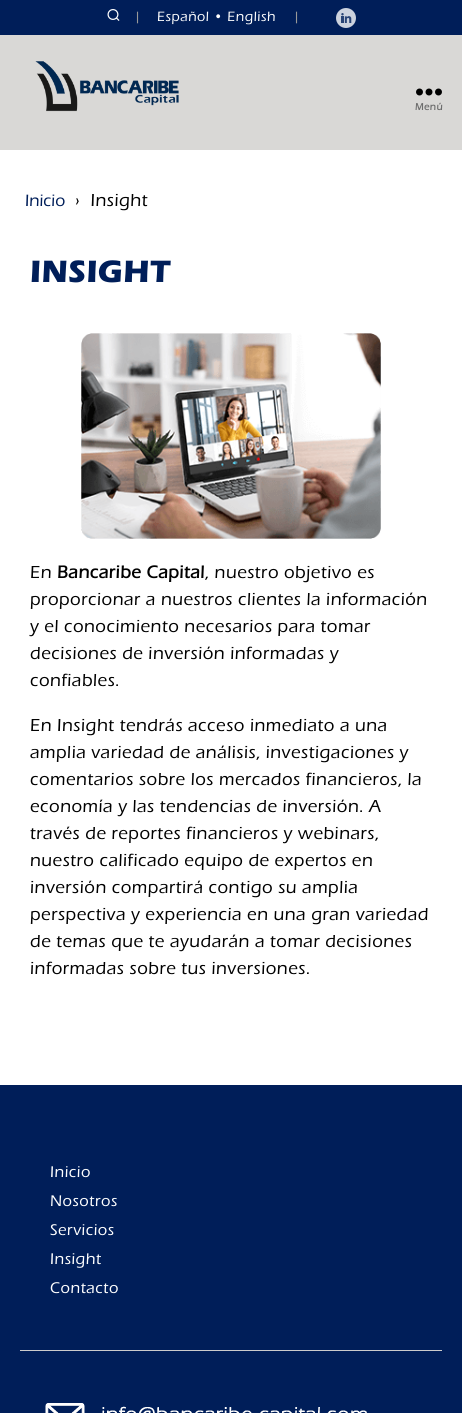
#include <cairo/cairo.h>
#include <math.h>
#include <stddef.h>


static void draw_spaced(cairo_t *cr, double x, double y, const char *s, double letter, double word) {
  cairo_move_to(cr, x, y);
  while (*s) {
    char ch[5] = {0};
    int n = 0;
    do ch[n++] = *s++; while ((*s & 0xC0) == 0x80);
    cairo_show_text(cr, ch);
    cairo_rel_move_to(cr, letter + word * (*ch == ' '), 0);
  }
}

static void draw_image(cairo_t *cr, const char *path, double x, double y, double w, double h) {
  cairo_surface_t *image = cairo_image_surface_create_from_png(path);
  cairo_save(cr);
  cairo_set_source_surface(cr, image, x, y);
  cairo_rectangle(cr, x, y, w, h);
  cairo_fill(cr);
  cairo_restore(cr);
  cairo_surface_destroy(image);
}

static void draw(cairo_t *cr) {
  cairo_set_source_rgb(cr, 1, 1, 1);
  cairo_paint(cr);
  cairo_set_source_rgb(cr, 0, 30 / 255.0, 89 / 255.0);
  cairo_rectangle(cr, 0, 0, 462, 35);
  cairo_fill(cr);
  draw_image(cr, "images/1.png", 107, 9, 13, 12);
  draw_image(cr, "images/2.png", 336, 8, 20, 20);
  cairo_set_source_rgb(cr, 217 / 255.0, 216 / 255.0, 214 / 255.0);
  cairo_rectangle(cr, 0, 35, 462, 115);
  cairo_fill(cr);
  draw_image(cr, "images/3.png", 35, 61, 144, 51);
  draw_image(cr, "images/4.png", 416, 88, 26, 8);
  draw_image(cr, "images/5.png", 81, 333, 300, 206);
  cairo_set_source_rgb(cr, 0, 30 / 255.0, 89 / 255.0);
  cairo_rectangle(cr, 0, 1085, 462, 328);
  cairo_fill(cr);
  cairo_set_source_rgb(cr, 204 / 255.0, 204 / 255.0, 204 / 255.0);
  cairo_rectangle(cr, 20, 1350, 422, 1);
  cairo_fill(cr);
  draw_image(cr, "images/6.png", 45, 1403, 40, 10);
  draw_image(cr, "images/7.png", 102, 1406, 265, 7);
  cairo_select_font_face(cr, "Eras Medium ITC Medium", CAIRO_FONT_SLANT_NORMAL, CAIRO_FONT_WEIGHT_NORMAL);
  cairo_set_font_size(cr, 14);
  cairo_set_source_rgb(cr, 153 / 255.0, 153 / 255.0, 153 / 255.0);
  draw_spaced(cr, 134, 21, "|", 0.5, 0);
  cairo_set_source_rgb(cr, 1, 1, 1);
  draw_spaced(cr, 157, 21, "Español • English", 0.5, 0);
  cairo_set_source_rgb(cr, 153 / 255.0, 153 / 255.0, 153 / 255.0);
  draw_spaced(cr, 293, 21, "|", 0.5, 0);
  cairo_select_font_face(cr, "Eras Medium ITC", CAIRO_FONT_SLANT_NORMAL, CAIRO_FONT_WEIGHT_BOLD);
  cairo_set_font_size(cr, 10);
  cairo_set_source_rgb(cr, 109 / 255.0, 109 / 255.0, 109 / 255.0);
  draw_spaced(cr, 415, 110, "Menú", 0.5, 0);
  cairo_select_font_face(cr, "Eras Medium ITC Medium", CAIRO_FONT_SLANT_NORMAL, CAIRO_FONT_WEIGHT_NORMAL);
  cairo_set_font_size(cr, 17);
  cairo_set_source_rgb(cr, 0, 30 / 255.0, 89 / 255.0);
  cairo_move_to(cr, 25, 206);
  cairo_show_text(cr, "Inicio");
  cairo_set_font_size(cr, 18);
  cairo_set_source_rgb(cr, 0, 0, 0);
  draw_spaced(cr, 75, 206, "›  Insight", 0.5, 0);
  cairo_select_font_face(cr, "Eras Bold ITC", CAIRO_FONT_SLANT_NORMAL, CAIRO_FONT_WEIGHT_BOLD);
  cairo_set_font_size(cr, 32);
  cairo_set_source_rgb(cr, 0, 30 / 255.0, 89 / 255.0);
  draw_spaced(cr, 30, 282, "INSIGHT", 0.5, 0);
  cairo_select_font_face(cr, "Eras Medium ITC Medium", CAIRO_FONT_SLANT_NORMAL, CAIRO_FONT_WEIGHT_NORMAL);
  cairo_set_font_size(cr, 18);
  cairo_set_source_rgb(cr, 0, 0, 0);
  draw_spaced(cr, 30, 578, "En", 0.5, 0);
  cairo_select_font_face(cr, "Eras Medium ITC", CAIRO_FONT_SLANT_NORMAL, CAIRO_FONT_WEIGHT_BOLD);
  draw_spaced(cr, 57, 578, "Bancaribe Capital", 0.5, 0);
  cairo_select_font_face(cr, "Eras Medium ITC Medium", CAIRO_FONT_SLANT_NORMAL, CAIRO_FONT_WEIGHT_NORMAL);
  draw_spaced(cr, 205, 578, ", nuestro objetivo es", 0.5, 0);
  draw_spaced(cr, 30, 605, "proporcionar a nuestros clientes la información", 0.5, 0);
  draw_spaced(cr, 30, 632, "y el conocimiento necesarios para tomar", 0.5, 0);
  draw_spaced(cr, 30, 659, "decisiones de inversión informadas y", 0.5, 0);
  draw_spaced(cr, 30, 686, "confiables.", 0.5, 0);
  draw_spaced(cr, 30, 731, "En Insight tendrás acceso inmediato a una", 0.5, 0);
  draw_spaced(cr, 30, 758, "amplia variedad de análisis, investigaciones y", 0.5, 0);
  draw_spaced(cr, 30, 785, "comentarios sobre los mercados financieros, la", 0.5, 0);
  draw_spaced(cr, 30, 812, "economía y las tendencias de inversión. A", 0.5, 0);
  draw_spaced(cr, 30, 839, "través de reportes financieros y webinars,", 0.5, 0);
  draw_spaced(cr, 30, 866, "nuestro calificado equipo de expertos en", 0.5, 0);
  draw_spaced(cr, 30, 893, "inversión compartirá contigo su amplia", 0.5, 0);
  draw_spaced(cr, 30, 920, "perspectiva y experiencia en una gran variedad", 0.5, 0);
  draw_spaced(cr, 30, 947, "de temas que te ayudarán a tomar decisiones", 0.5, 0);
  draw_spaced(cr, 30, 974, "informadas sobre tus inversiones.", 0.5, 0);
  cairo_set_font_size(cr, 16);
  cairo_set_source_rgb(cr, 1, 1, 1);
  draw_spaced(cr, 50, 1177, "Inicio", 0.5, 0);
  draw_spaced(cr, 50, 1206, "Nosotros", 0.5, 0);
  draw_spaced(cr, 50, 1235, "Servicios", 0.5, 0);
  draw_spaced(cr, 50, 1264, "Insight", 0.5, 0);
  draw_spaced(cr, 50, 1293, "Contacto", 0.5, 0);
}

int main(void) {
  cairo_surface_t *surface = cairo_image_surface_create(CAIRO_FORMAT_RGB24, 462, 1413);
  cairo_t *cr = cairo_create(surface);
  cairo_font_options_t *options = cairo_font_options_create();
  cairo_font_options_set_hint_metrics(options, CAIRO_HINT_METRICS_OFF);
  cairo_font_options_set_hint_style(options, CAIRO_HINT_STYLE_NONE);
  cairo_set_font_options(cr, options);
  cairo_set_miter_limit(cr, 4);
  draw(cr);
  cairo_surface_write_to_png(surface, "out.png");
  cairo_font_options_destroy(options);
  cairo_destroy(cr);
  cairo_surface_destroy(surface);
  return 0;
}
